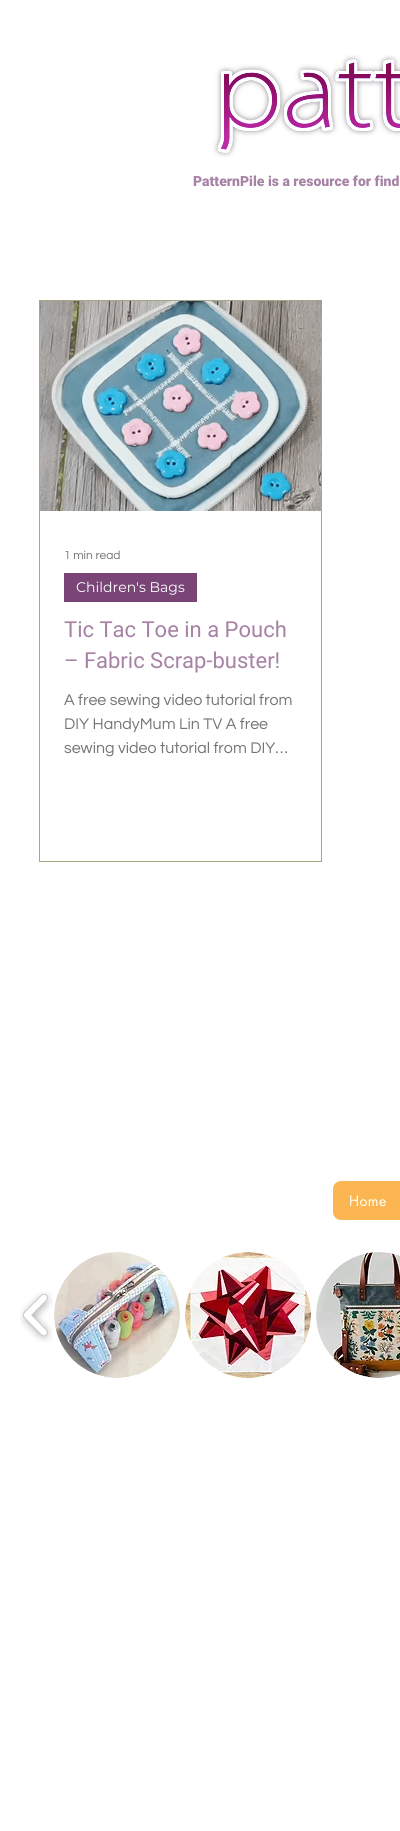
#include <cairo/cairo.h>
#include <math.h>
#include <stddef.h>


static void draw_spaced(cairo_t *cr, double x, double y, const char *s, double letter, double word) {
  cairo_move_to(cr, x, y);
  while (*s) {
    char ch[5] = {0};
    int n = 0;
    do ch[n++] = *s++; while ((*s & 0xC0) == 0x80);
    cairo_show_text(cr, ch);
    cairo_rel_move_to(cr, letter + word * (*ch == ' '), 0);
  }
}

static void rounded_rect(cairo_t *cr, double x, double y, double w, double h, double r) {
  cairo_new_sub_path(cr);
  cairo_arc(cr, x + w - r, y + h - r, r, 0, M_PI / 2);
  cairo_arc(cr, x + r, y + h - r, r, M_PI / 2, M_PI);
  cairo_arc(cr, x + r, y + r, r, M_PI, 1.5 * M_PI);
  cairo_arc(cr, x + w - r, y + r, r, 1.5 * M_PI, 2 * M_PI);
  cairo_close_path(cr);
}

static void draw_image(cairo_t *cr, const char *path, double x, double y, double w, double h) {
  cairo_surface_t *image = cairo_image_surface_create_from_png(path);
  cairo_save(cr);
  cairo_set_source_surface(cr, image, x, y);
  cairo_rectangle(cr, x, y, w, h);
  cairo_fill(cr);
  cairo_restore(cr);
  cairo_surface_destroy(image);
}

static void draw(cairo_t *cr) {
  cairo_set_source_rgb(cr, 1, 1, 1);
  cairo_paint(cr);
  draw_image(cr, "images/1.png", 213, 55, 187, 102);
  cairo_rectangle(cr, 39.5, 300.5, 282, 561);
  cairo_set_source_rgb(cr, 165 / 255.0, 166 / 255.0, 130 / 255.0);
  cairo_set_line_width(cr, 1);
  cairo_stroke(cr);
  draw_image(cr, "images/2.png", 40, 301, 281, 210);
  cairo_set_source_rgb(cr, 121 / 255.0, 69 / 255.0, 119 / 255.0);
  cairo_rectangle(cr, 64, 573, 133, 29);
  cairo_fill(cr);
  cairo_set_source_rgb(cr, 251 / 255.0, 182 / 255.0, 81 / 255.0);
  rounded_rect(cr, 333, 1181, 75, 39, 8);
  cairo_fill(cr);
  draw_image(cr, "images/3.png", 20, 1292, 33, 50);
  draw_image(cr, "images/4.png", 54, 1252, 126, 126);
  draw_image(cr, "images/5.png", 185, 1252, 126, 126);
  draw_image(cr, "images/6.png", 316, 1252, 84, 126);
  cairo_select_font_face(cr, "Roboto Black", CAIRO_FONT_SLANT_NORMAL, CAIRO_FONT_WEIGHT_NORMAL);
  cairo_set_font_size(cr, 14);
  cairo_set_source_rgb(cr, 166 / 255.0, 130 / 255.0, 164 / 255.0);
  cairo_move_to(cr, 193, 186);
  cairo_show_text(cr, "PatternPile is a resource for find");
  cairo_select_font_face(cr, "Questrial", CAIRO_FONT_SLANT_NORMAL, CAIRO_FONT_WEIGHT_NORMAL);
  cairo_set_font_size(cr, 12);
  cairo_set_source_rgb(cr, 117 / 255.0, 117 / 255.0, 117 / 255.0);
  cairo_move_to(cr, 64, 559);
  cairo_show_text(cr, "1 min read");
  cairo_select_font_face(cr, "Montserrat", CAIRO_FONT_SLANT_NORMAL, CAIRO_FONT_WEIGHT_NORMAL);
  cairo_set_font_size(cr, 14);
  cairo_set_source_rgb(cr, 1, 1, 1);
  cairo_move_to(cr, 76, 592);
  cairo_show_text(cr, "Children's Bags");
  cairo_select_font_face(cr, "Roboto", CAIRO_FONT_SLANT_NORMAL, CAIRO_FONT_WEIGHT_NORMAL);
  cairo_set_font_size(cr, 22);
  cairo_set_source_rgb(cr, 166 / 255.0, 130 / 255.0, 164 / 255.0);
  cairo_move_to(cr, 64, 637);
  cairo_show_text(cr, "Tic Tac Toe in a Pouch");
  cairo_move_to(cr, 64, 668);
  cairo_show_text(cr, "– Fabric Scrap-buster!");
  cairo_select_font_face(cr, "Questrial", CAIRO_FONT_SLANT_NORMAL, CAIRO_FONT_WEIGHT_NORMAL);
  cairo_set_font_size(cr, 16);
  cairo_set_source_rgb(cr, 117 / 255.0, 117 / 255.0, 117 / 255.0);
  cairo_move_to(cr, 64, 705);
  cairo_show_text(cr, "A free sewing video tutorial from");
  cairo_move_to(cr, 64, 729);
  cairo_show_text(cr, "DIY HandyMum Lin TV A free");
  cairo_move_to(cr, 64, 753);
  cairo_show_text(cr, "sewing video tutorial from DIY…");
  cairo_select_font_face(cr, "futura", CAIRO_FONT_SLANT_NORMAL, CAIRO_FONT_WEIGHT_NORMAL);
  cairo_set_font_size(cr, 14);
  cairo_set_source_rgb(cr, 1, 1, 1);
  draw_spaced(cr, 349, 1206, "Home", 0.5, 0);
}

int main(void) {
  cairo_surface_t *surface = cairo_image_surface_create(CAIRO_FORMAT_RGB24, 400, 1831);
  cairo_t *cr = cairo_create(surface);
  cairo_font_options_t *options = cairo_font_options_create();
  cairo_font_options_set_hint_metrics(options, CAIRO_HINT_METRICS_OFF);
  cairo_font_options_set_hint_style(options, CAIRO_HINT_STYLE_NONE);
  cairo_set_font_options(cr, options);
  cairo_set_miter_limit(cr, 4);
  draw(cr);
  cairo_surface_write_to_png(surface, "out.png");
  cairo_font_options_destroy(options);
  cairo_destroy(cr);
  cairo_surface_destroy(surface);
  return 0;
}
